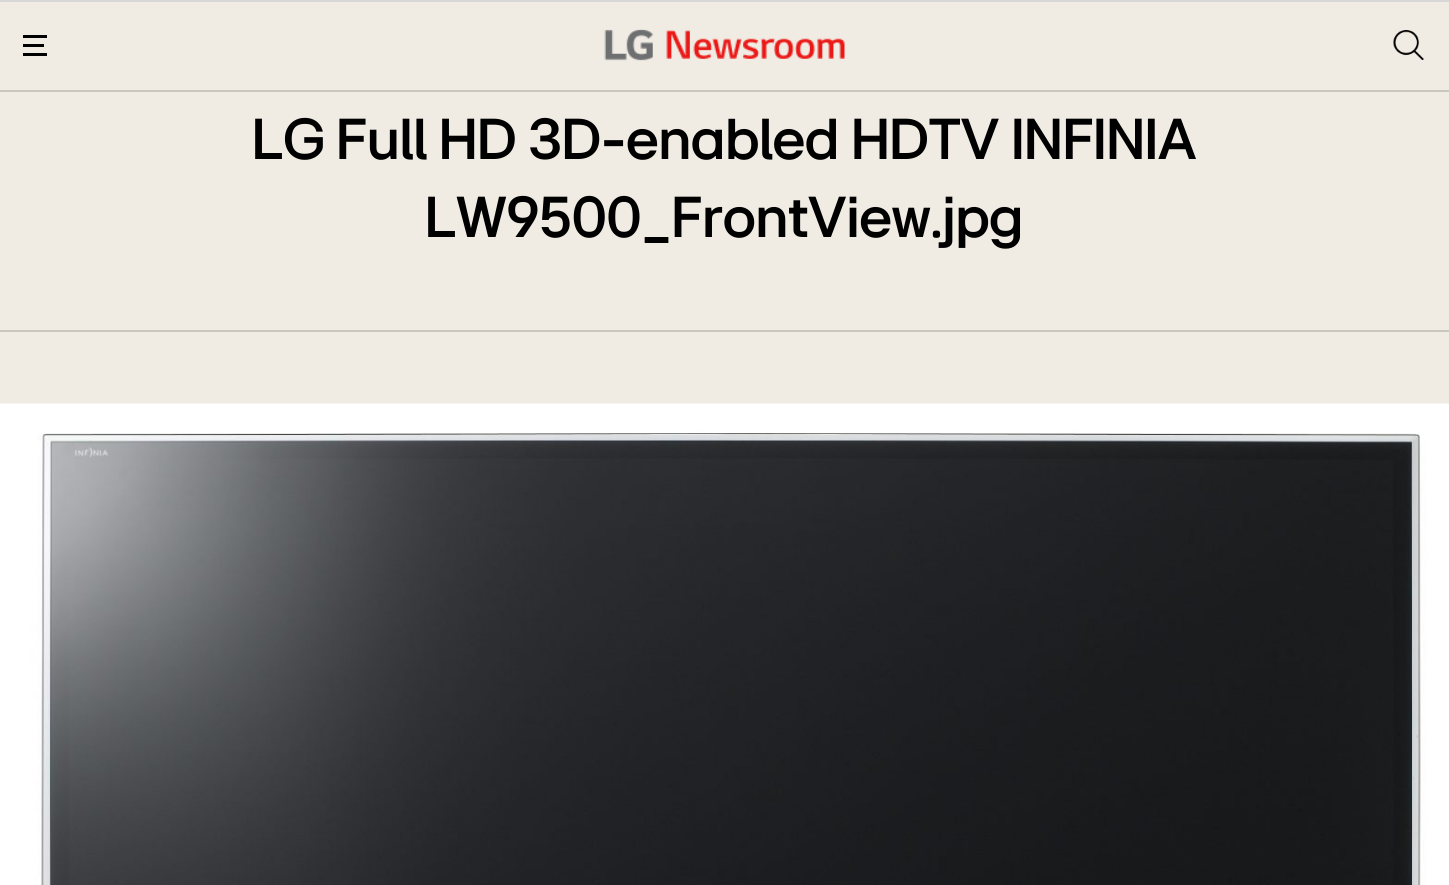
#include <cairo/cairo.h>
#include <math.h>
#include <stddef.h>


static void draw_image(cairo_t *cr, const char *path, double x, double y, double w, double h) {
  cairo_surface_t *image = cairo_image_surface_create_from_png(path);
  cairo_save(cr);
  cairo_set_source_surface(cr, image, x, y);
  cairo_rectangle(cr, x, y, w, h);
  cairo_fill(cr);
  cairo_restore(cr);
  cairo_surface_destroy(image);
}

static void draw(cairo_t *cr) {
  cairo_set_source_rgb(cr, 240 / 255.0, 236 / 255.0, 228 / 255.0);
  cairo_paint(cr);
  cairo_set_source_rgb(cr, 215 / 255.0, 215 / 255.0, 215 / 255.0);
  cairo_rectangle(cr, 0, 0, 1449, 2);
  cairo_fill(cr);
  cairo_set_source_rgb(cr, 203 / 255.0, 200 / 255.0, 194 / 255.0);
  cairo_rectangle(cr, 0, 90, 1449, 2);
  cairo_fill(cr);
  cairo_set_source_rgb(cr, 0, 0, 0);
  cairo_rectangle(cr, 23, 35, 24, 3);
  cairo_fill(cr);
  cairo_rectangle(cr, 23, 44, 21, 3);
  cairo_fill(cr);
  cairo_rectangle(cr, 23, 53, 24, 3);
  cairo_fill(cr);
  draw_image(cr, "images/1.png", 604, 29, 241, 32);
  draw_image(cr, "images/2.png", 1393, 30, 31, 30);
  cairo_set_source_rgb(cr, 203 / 255.0, 200 / 255.0, 194 / 255.0);
  cairo_rectangle(cr, 0, 330, 1449, 2);
  cairo_fill(cr);
  draw_image(cr, "images/3.png", 0, 403, 1449, 482);
  cairo_select_font_face(cr, "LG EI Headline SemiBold", CAIRO_FONT_SLANT_NORMAL, CAIRO_FONT_WEIGHT_NORMAL);
  cairo_set_font_size(cr, 60);
  cairo_set_source_rgb(cr, 0, 0, 0);
  cairo_move_to(cr, 252, 159);
  cairo_show_text(cr, "LG Full HD 3D-enabled HDTV INFINIA");
  cairo_move_to(cr, 425, 237);
  cairo_show_text(cr, "LW9500_FrontView.jpg");
}

int main(void) {
  cairo_surface_t *surface = cairo_image_surface_create(CAIRO_FORMAT_RGB24, 1449, 885);
  cairo_t *cr = cairo_create(surface);
  cairo_font_options_t *options = cairo_font_options_create();
  cairo_font_options_set_hint_metrics(options, CAIRO_HINT_METRICS_OFF);
  cairo_font_options_set_hint_style(options, CAIRO_HINT_STYLE_NONE);
  cairo_set_font_options(cr, options);
  cairo_set_miter_limit(cr, 4);
  draw(cr);
  cairo_surface_write_to_png(surface, "out.png");
  cairo_font_options_destroy(options);
  cairo_destroy(cr);
  cairo_surface_destroy(surface);
  return 0;
}
